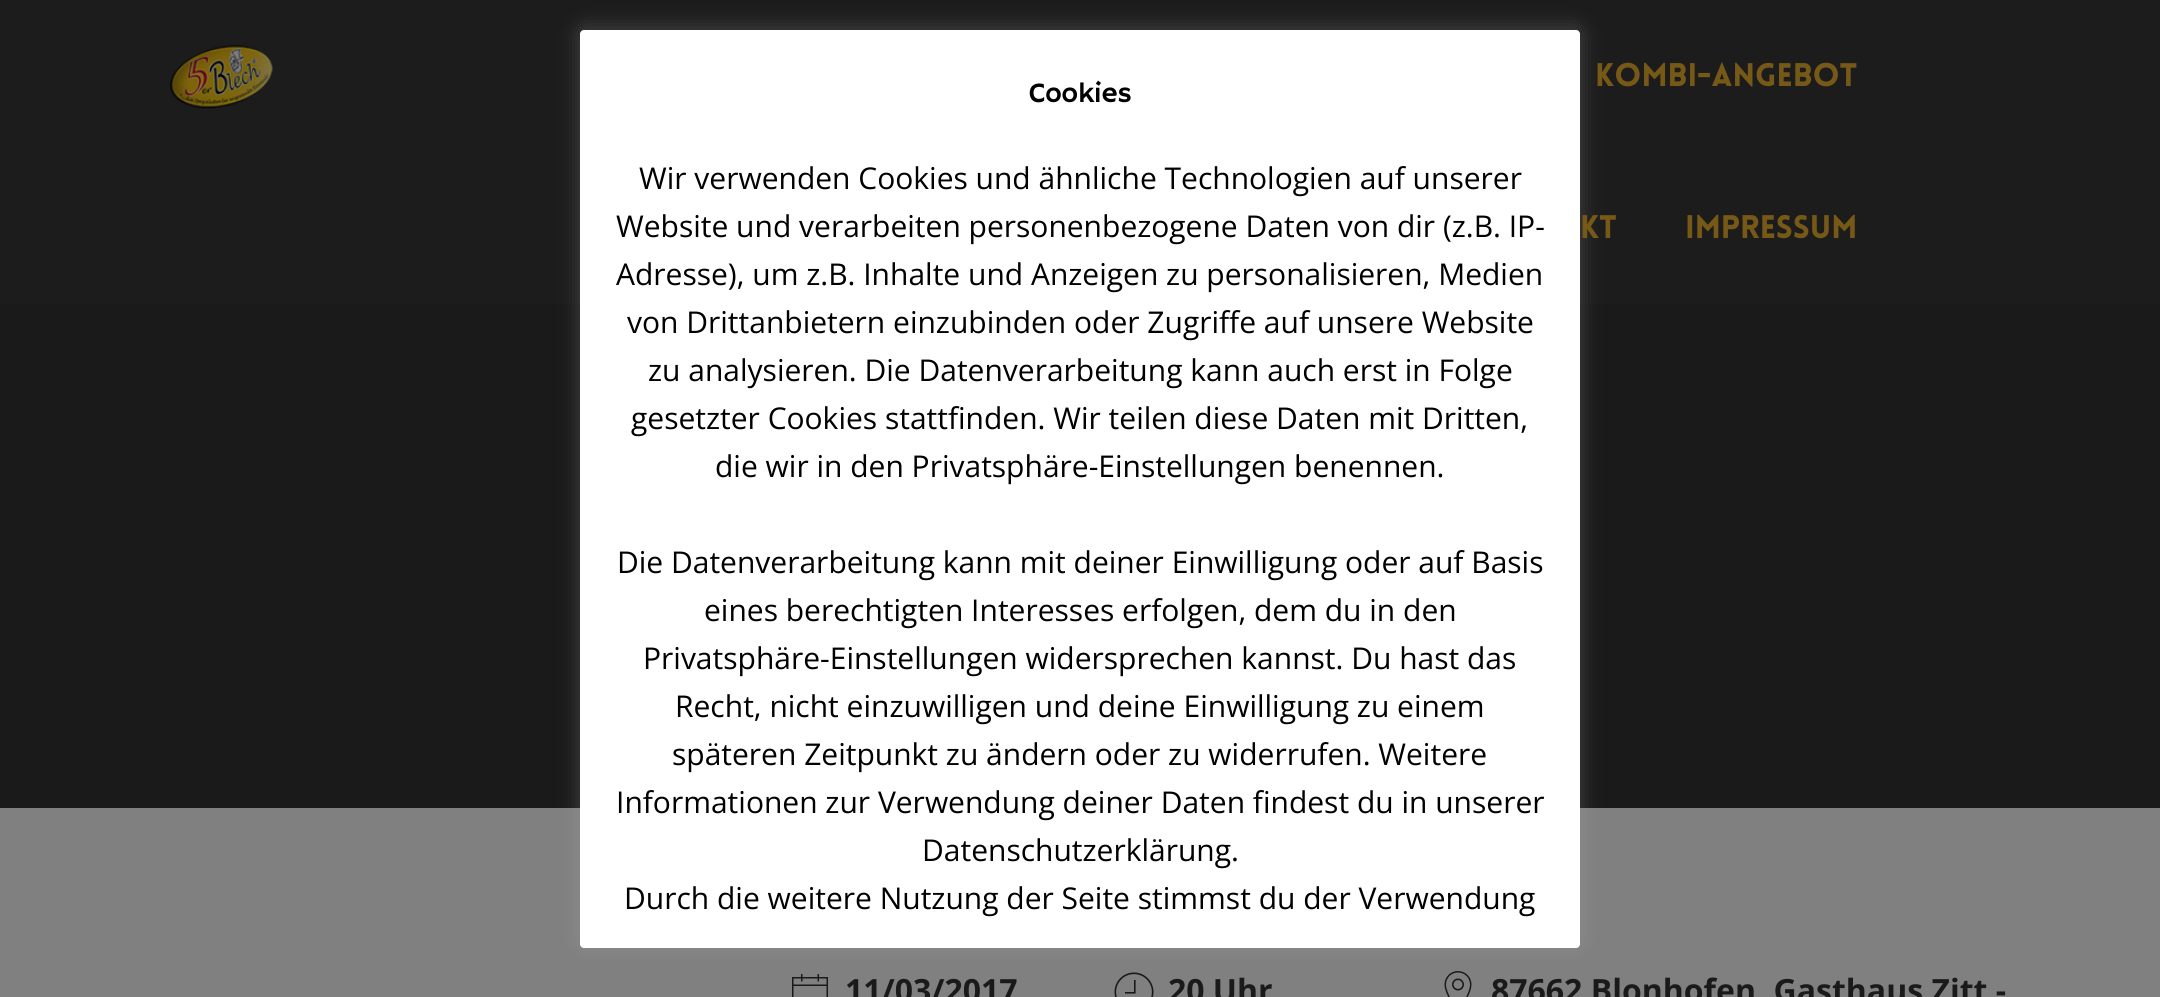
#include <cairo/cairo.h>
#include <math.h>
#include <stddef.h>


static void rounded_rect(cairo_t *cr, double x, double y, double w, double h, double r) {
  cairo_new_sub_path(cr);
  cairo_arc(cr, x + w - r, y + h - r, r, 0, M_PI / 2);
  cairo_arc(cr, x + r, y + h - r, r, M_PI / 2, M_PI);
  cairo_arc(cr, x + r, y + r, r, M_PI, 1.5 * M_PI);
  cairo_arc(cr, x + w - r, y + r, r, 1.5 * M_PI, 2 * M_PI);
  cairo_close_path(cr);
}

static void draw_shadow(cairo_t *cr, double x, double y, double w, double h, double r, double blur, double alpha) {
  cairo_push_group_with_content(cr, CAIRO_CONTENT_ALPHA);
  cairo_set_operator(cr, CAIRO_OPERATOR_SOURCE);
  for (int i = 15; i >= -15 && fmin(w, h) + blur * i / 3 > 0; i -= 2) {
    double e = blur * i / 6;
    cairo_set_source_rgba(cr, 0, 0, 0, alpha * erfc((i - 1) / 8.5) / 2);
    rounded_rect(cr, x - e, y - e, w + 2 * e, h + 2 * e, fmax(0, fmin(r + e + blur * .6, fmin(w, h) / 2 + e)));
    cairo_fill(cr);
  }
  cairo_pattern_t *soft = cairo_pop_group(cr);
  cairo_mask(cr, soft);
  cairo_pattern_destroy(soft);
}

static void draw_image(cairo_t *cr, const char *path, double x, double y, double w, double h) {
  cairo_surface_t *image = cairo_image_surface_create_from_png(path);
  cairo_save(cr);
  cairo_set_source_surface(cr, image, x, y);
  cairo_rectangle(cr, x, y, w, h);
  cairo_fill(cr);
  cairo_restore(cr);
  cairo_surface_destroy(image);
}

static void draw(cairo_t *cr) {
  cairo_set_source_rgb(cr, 128 / 255.0, 128 / 255.0, 128 / 255.0);
  cairo_paint(cr);
  cairo_set_source_rgb(cr, 28 / 255.0, 28 / 255.0, 28 / 255.0);
  cairo_rectangle(cr, 0, 0, 2160, 304);
  cairo_fill(cr);
  draw_image(cr, "images/1.png", 169, 45, 104, 64);
  cairo_set_source_rgb(cr, 26 / 255.0, 26 / 255.0, 26 / 255.0);
  cairo_rectangle(cr, 0, 304, 2160, 504);
  cairo_fill(cr);
  draw_image(cr, "images/2.png", 792, 974, 36, 23);
  draw_image(cr, "images/3.png", 1114, 972, 40, 25);
  draw_image(cr, "images/4.png", 1444, 971, 28, 26);
  cairo_set_source_rgb(cr, 172 / 255.0, 171 / 255.0, 171 / 255.0);
  draw_shadow(cr, 580, 28, 1000, 918, 4, 10, 0.3);
  cairo_set_source_rgb(cr, 1, 1, 1);
  rounded_rect(cr, 580, 30, 1000, 918, 4);
  cairo_fill(cr);
  cairo_select_font_face(cr, "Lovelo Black", CAIRO_FONT_SLANT_NORMAL, CAIRO_FONT_WEIGHT_NORMAL);
  cairo_set_font_size(cr, 32);
  cairo_set_source_rgb(cr, 118 / 255.0, 89 / 255.0, 23 / 255.0);
  cairo_move_to(cr, 1595, 86);
  cairo_show_text(cr, "KOMBI-ANGEBOT");
  cairo_move_to(cr, 1580, 238);
  cairo_show_text(cr, "KT");
  cairo_move_to(cr, 1685, 238);
  cairo_show_text(cr, "IMPRESSUM");
  cairo_select_font_face(cr, "Open Sans", CAIRO_FONT_SLANT_NORMAL, CAIRO_FONT_WEIGHT_BOLD);
  cairo_set_source_rgb(cr, 26 / 255.0, 26 / 255.0, 26 / 255.0);
  cairo_move_to(cr, 845, 1002);
  cairo_show_text(cr, "11/03/2017");
  cairo_move_to(cr, 1168, 1002);
  cairo_show_text(cr, "20 Uhr");
  cairo_move_to(cr, 1491, 1002);
  cairo_show_text(cr, "87662 Blonhofen, Gasthaus Zitt -");
  cairo_select_font_face(cr, "Hammersmith One", CAIRO_FONT_SLANT_NORMAL, CAIRO_FONT_WEIGHT_NORMAL);
  cairo_set_font_size(cr, 28);
  cairo_set_source_rgb(cr, 0, 0, 0);
  cairo_move_to(cr, 1029, 102);
  cairo_show_text(cr, "Cookies");
  cairo_select_font_face(cr, "Open Sans", CAIRO_FONT_SLANT_NORMAL, CAIRO_FONT_WEIGHT_NORMAL);
  cairo_set_font_size(cr, 30);
  cairo_move_to(cr, 639, 189);
  cairo_show_text(cr, "Wir verwenden Cookies und ähnliche Technologien auf unserer");
  cairo_move_to(cr, 616, 237);
  cairo_show_text(cr, "Website und verarbeiten personenbezogene Daten von dir (z.B. IP-");
  cairo_move_to(cr, 616, 285);
  cairo_show_text(cr, "Adresse), um z.B. Inhalte und Anzeigen zu personalisieren, Medien");
  cairo_move_to(cr, 627, 333);
  cairo_show_text(cr, "von Drittanbietern einzubinden oder Zugriffe auf unsere Website");
  cairo_move_to(cr, 648, 381);
  cairo_show_text(cr, "zu analysieren. Die Datenverarbeitung kann auch erst in Folge");
  cairo_move_to(cr, 631, 429);
  cairo_show_text(cr, "gesetzter Cookies stattfinden. Wir teilen diese Daten mit Dritten,");
  cairo_move_to(cr, 715, 477);
  cairo_show_text(cr, "die wir in den Privatsphäre-Einstellungen benennen.");
  cairo_move_to(cr, 617, 573);
  cairo_show_text(cr, "Die Datenverarbeitung kann mit deiner Einwilligung oder auf Basis");
  cairo_move_to(cr, 704, 621);
  cairo_show_text(cr, "eines berechtigten Interesses erfolgen, dem du in den");
  cairo_move_to(cr, 643, 669);
  cairo_show_text(cr, "Privatsphäre-Einstellungen widersprechen kannst. Du hast das");
  cairo_move_to(cr, 675, 717);
  cairo_show_text(cr, "Recht, nicht einzuwilligen und deine Einwilligung zu einem");
  cairo_move_to(cr, 672, 765);
  cairo_show_text(cr, "späteren Zeitpunkt zu ändern oder zu widerrufen. Weitere");
  cairo_move_to(cr, 616, 813);
  cairo_show_text(cr, "Informationen zur Verwendung deiner Daten findest du in unserer");
  cairo_move_to(cr, 922, 861);
  cairo_show_text(cr, "Datenschutzerklärung.");
  cairo_move_to(cr, 624, 909);
  cairo_show_text(cr, "Durch die weitere Nutzung der Seite stimmst du der Verwendung");
}

int main(void) {
  cairo_surface_t *surface = cairo_image_surface_create(CAIRO_FORMAT_RGB24, 2160, 997);
  cairo_t *cr = cairo_create(surface);
  cairo_font_options_t *options = cairo_font_options_create();
  cairo_font_options_set_hint_metrics(options, CAIRO_HINT_METRICS_OFF);
  cairo_font_options_set_hint_style(options, CAIRO_HINT_STYLE_NONE);
  cairo_set_font_options(cr, options);
  cairo_set_miter_limit(cr, 4);
  draw(cr);
  cairo_surface_write_to_png(surface, "out.png");
  cairo_font_options_destroy(options);
  cairo_destroy(cr);
  cairo_surface_destroy(surface);
  return 0;
}
